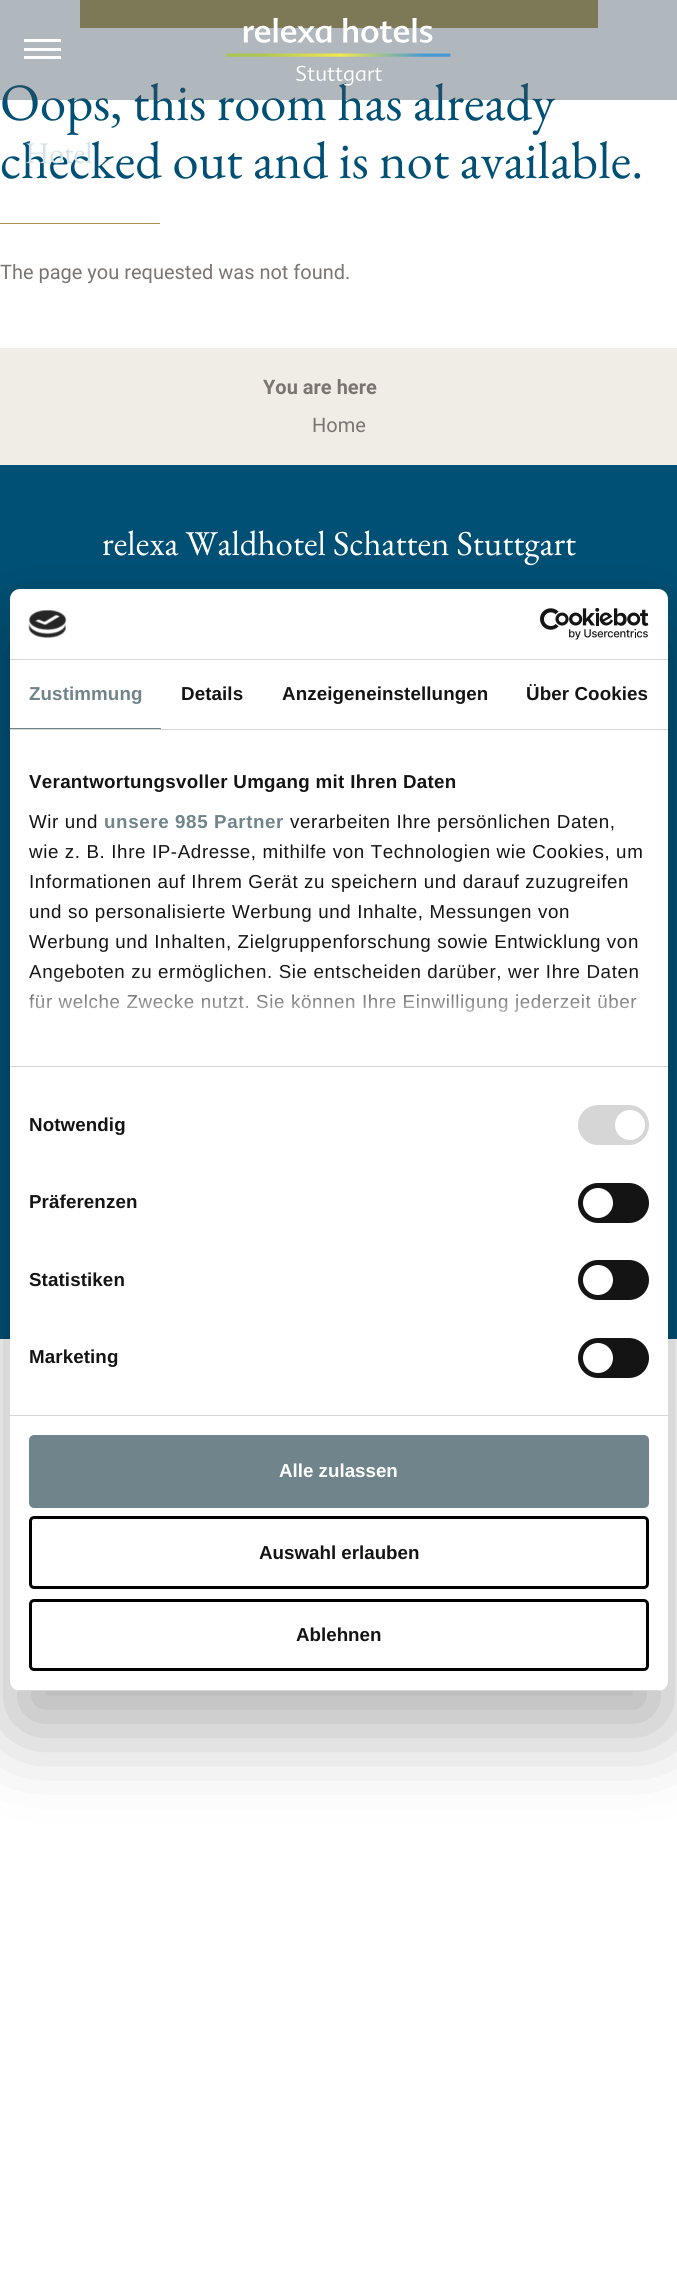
#include <cairo/cairo.h>
#include <math.h>
#include <stddef.h>


static void draw_spaced(cairo_t *cr, double x, double y, const char *s, double letter, double word) {
  cairo_move_to(cr, x, y);
  while (*s) {
    char ch[5] = {0};
    int n = 0;
    do ch[n++] = *s++; while ((*s & 0xC0) == 0x80);
    cairo_show_text(cr, ch);
    cairo_rel_move_to(cr, letter + word * (*ch == ' '), 0);
  }
}

static void rounded_rect(cairo_t *cr, double x, double y, double w, double h, double r) {
  cairo_new_sub_path(cr);
  cairo_arc(cr, x + w - r, y + h - r, r, 0, M_PI / 2);
  cairo_arc(cr, x + r, y + h - r, r, M_PI / 2, M_PI);
  cairo_arc(cr, x + r, y + r, r, M_PI, 1.5 * M_PI);
  cairo_arc(cr, x + w - r, y + r, r, 1.5 * M_PI, 2 * M_PI);
  cairo_close_path(cr);
}

static void draw_shadow(cairo_t *cr, double x, double y, double w, double h, double r, double blur, double alpha) {
  cairo_push_group_with_content(cr, CAIRO_CONTENT_ALPHA);
  cairo_set_operator(cr, CAIRO_OPERATOR_SOURCE);
  for (int i = 15; i >= -15 && fmin(w, h) + blur * i / 3 > 0; i -= 2) {
    double e = blur * i / 6;
    cairo_set_source_rgba(cr, 0, 0, 0, alpha * erfc((i - 1) / 8.5) / 2);
    rounded_rect(cr, x - e, y - e, w + 2 * e, h + 2 * e, fmax(0, fmin(r + e + blur * .6, fmin(w, h) / 2 + e)));
    cairo_fill(cr);
  }
  cairo_pattern_t *soft = cairo_pop_group(cr);
  cairo_mask(cr, soft);
  cairo_pattern_destroy(soft);
}

static void draw_image(cairo_t *cr, const char *path, double x, double y, double w, double h) {
  cairo_surface_t *image = cairo_image_surface_create_from_png(path);
  cairo_save(cr);
  cairo_set_source_surface(cr, image, x, y);
  cairo_rectangle(cr, x, y, w, h);
  cairo_fill(cr);
  cairo_restore(cr);
  cairo_surface_destroy(image);
}

static void draw(cairo_t *cr) {
  cairo_pattern_t *gradient;
  cairo_set_source_rgb(cr, 1, 1, 1);
  cairo_paint(cr);
  cairo_set_source_rgb(cr, 169 / 255.0, 148 / 255.0, 83 / 255.0);
  cairo_rectangle(cr, 80, 0, 518, 28);
  cairo_fill(cr);
  cairo_rectangle(cr, 0, 223, 160, 1);
  cairo_fill(cr);
  cairo_set_source_rgb(cr, 240 / 255.0, 237 / 255.0, 230 / 255.0);
  cairo_rectangle(cr, 0, 348, 677, 117);
  cairo_fill(cr);
  cairo_set_source_rgb(cr, 0, 80 / 255.0, 117 / 255.0);
  cairo_rectangle(cr, 0, 465, 677, 874);
  cairo_fill(cr);
  cairo_set_source_rgb(cr, 0, 0, 0);
  draw_shadow(cr, 10, 629, 658, 1102, 10, 42.5, 0.3);
  cairo_set_source_rgb(cr, 1, 1, 1);
  rounded_rect(cr, 10, 589, 658, 1102, 10);
  cairo_fill(cr);
  cairo_set_source_rgb(cr, 214 / 255.0, 214 / 255.0, 214 / 255.0);
  cairo_rectangle(cr, 10, 659, 658, 1);
  cairo_fill(cr);
  draw_image(cr, "images/2.png", 28, 610, 39, 28);
  draw_image(cr, "images/3.png", 540, 608, 109, 32);
  cairo_rectangle(cr, 10, 729, 658, 1);
  cairo_fill(cr);
  cairo_set_source_rgb(cr, 112 / 255.0, 132 / 255.0, 139 / 255.0);
  cairo_rectangle(cr, 10, 728, 151, 1);
  cairo_fill(cr);
  cairo_set_source_rgb(cr, 214 / 255.0, 214 / 255.0, 214 / 255.0);
  cairo_rectangle(cr, 10, 1066, 658, 1);
  cairo_fill(cr);
  cairo_rectangle(cr, 10, 1415, 658, 1);
  cairo_fill(cr);
  rounded_rect(cr, 578, 1105, 71, 40, 20);
  cairo_fill(cr);
  cairo_set_source_rgb(cr, 1, 1, 1);
  cairo_arc(cr, 630, 1125, 15, 0, 2 * M_PI);
  cairo_fill(cr);
  cairo_set_source_rgb(cr, 20 / 255.0, 20 / 255.0, 20 / 255.0);
  rounded_rect(cr, 578, 1183, 71, 40, 20);
  cairo_fill(cr);
  cairo_set_source_rgb(cr, 1, 1, 1);
  cairo_arc(cr, 598, 1203, 15, 0, 2 * M_PI);
  cairo_fill(cr);
  cairo_set_source_rgb(cr, 20 / 255.0, 20 / 255.0, 20 / 255.0);
  rounded_rect(cr, 578, 1260, 71, 40, 20);
  cairo_fill(cr);
  cairo_set_source_rgb(cr, 1, 1, 1);
  cairo_arc(cr, 598, 1280, 15, 0, 2 * M_PI);
  cairo_fill(cr);
  cairo_set_source_rgb(cr, 20 / 255.0, 20 / 255.0, 20 / 255.0);
  rounded_rect(cr, 578, 1338, 71, 40, 20);
  cairo_fill(cr);
  cairo_set_source_rgb(cr, 1, 1, 1);
  cairo_arc(cr, 598, 1358, 15, 0, 2 * M_PI);
  cairo_fill(cr);
  cairo_save(cr);
  rounded_rect(cr, 10, 589, 658, 1102, 10);
  cairo_clip(cr);
  cairo_set_source_rgb(cr, 214 / 255.0, 214 / 255.0, 214 / 255.0);
  cairo_rectangle(cr, 10, 1690, 658, 1);
  cairo_fill(cr);
  cairo_restore(cr);
  cairo_set_source_rgb(cr, 112 / 255.0, 132 / 255.0, 139 / 255.0);
  rounded_rect(cr, 30.5, 1436.5, 617, 70, 3.5);
  cairo_fill_preserve(cr);
  cairo_set_line_width(cr, 3);
  cairo_stroke(cr);
  rounded_rect(cr, 30.5, 1517.5, 617, 70, 3.5);
  cairo_set_source_rgb(cr, 0, 0, 0);
  cairo_stroke(cr);
  rounded_rect(cr, 30.5, 1600.5, 617, 69, 3.5);
  cairo_stroke(cr);
  cairo_select_font_face(cr, "EB Garamond", CAIRO_FONT_SLANT_NORMAL, CAIRO_FONT_WEIGHT_NORMAL);
  cairo_set_font_size(cr, 52.5);
  cairo_set_source_rgb(cr, 0, 80 / 255.0, 117 / 255.0);
  cairo_move_to(cr, 0, 120);
  cairo_show_text(cr, "Oops, this room has already");
  cairo_set_source_rgba(cr, 62 / 255.0, 78 / 255.0, 91 / 255.0, 0.4);
  cairo_rectangle(cr, 0, 0, 677, 100);
  cairo_fill(cr);
  cairo_set_source_rgb(cr, 1, 1, 1);
  cairo_rectangle(cr, 24, 56, 37, 3);
  cairo_fill(cr);
  cairo_rectangle(cr, 24, 39, 37, 3);
  cairo_fill(cr);
  cairo_rectangle(cr, 24, 48, 37, 3);
  cairo_fill(cr);
  draw_image(cr, "images/1.png", 226, 18, 225, 68);
  cairo_set_source_rgb(cr, 0, 80 / 255.0, 117 / 255.0);
  cairo_move_to(cr, 0, 178);
  cairo_show_text(cr, "checked out and is not available.");
  cairo_select_font_face(cr, "Roboto", CAIRO_FONT_SLANT_NORMAL, CAIRO_FONT_WEIGHT_NORMAL);
  cairo_set_font_size(cr, 20);
  cairo_set_source_rgb(cr, 122 / 255.0, 117 / 255.0, 114 / 255.0);
  cairo_move_to(cr, 0, 279);
  cairo_show_text(cr, "The page you requested was not found.");
  cairo_select_font_face(cr, "EB Garamond", CAIRO_FONT_SLANT_NORMAL, CAIRO_FONT_WEIGHT_NORMAL);
  cairo_set_font_size(cr, 30);
  cairo_set_source_rgb(cr, 213 / 255.0, 226 / 255.0, 232 / 255.0);
  cairo_move_to(cr, 25, 163);
  cairo_show_text(cr, "Hotel");
  cairo_select_font_face(cr, "Roboto", CAIRO_FONT_SLANT_NORMAL, CAIRO_FONT_WEIGHT_BOLD);
  cairo_set_font_size(cr, 20);
  cairo_set_source_rgb(cr, 122 / 255.0, 117 / 255.0, 114 / 255.0);
  cairo_move_to(cr, 263, 394);
  cairo_show_text(cr, "You are here");
  cairo_select_font_face(cr, "Roboto", CAIRO_FONT_SLANT_NORMAL, CAIRO_FONT_WEIGHT_NORMAL);
  cairo_move_to(cr, 312, 432);
  cairo_show_text(cr, "Home");
  cairo_select_font_face(cr, "EB Garamond", CAIRO_FONT_SLANT_NORMAL, CAIRO_FONT_WEIGHT_NORMAL);
  cairo_set_font_size(cr, 35);
  cairo_set_source_rgb(cr, 1, 1, 1);
  cairo_move_to(cr, 102, 555);
  cairo_show_text(cr, "relexa Waldhotel Schatten Stuttgart");
  cairo_select_font_face(cr, "Liberation Sans", CAIRO_FONT_SLANT_NORMAL, CAIRO_FONT_WEIGHT_BOLD);
  cairo_set_font_size(cr, 18.75);
  cairo_set_source_rgb(cr, 112 / 255.0, 132 / 255.0, 139 / 255.0);
  draw_spaced(cr, 29, 700, "Zustimmung", 0.1, 0);
  cairo_set_source_rgb(cr, 20 / 255.0, 20 / 255.0, 20 / 255.0);
  draw_spaced(cr, 181, 700, "Details", 0.1, 0);
  draw_spaced(cr, 282, 700, "Anzeigeneinstellungen", 0.1, 0);
  draw_spaced(cr, 526, 700, "Über Cookies", 0.1, 0);
  draw_spaced(cr, 29, 788, "Verantwortungsvoller Umgang mit Ihren Daten", 0.3, 0);
  cairo_select_font_face(cr, "Liberation Sans", CAIRO_FONT_SLANT_NORMAL, CAIRO_FONT_WEIGHT_NORMAL);
  draw_spaced(cr, 29, 828, "Wir und", 0.62, 0);
  cairo_select_font_face(cr, "Liberation Sans", CAIRO_FONT_SLANT_NORMAL, CAIRO_FONT_WEIGHT_BOLD);
  cairo_set_source_rgb(cr, 112 / 255.0, 132 / 255.0, 139 / 255.0);
  draw_spaced(cr, 104, 828, "unsere 985 Partner", 0.62, 0);
  cairo_select_font_face(cr, "Liberation Sans", CAIRO_FONT_SLANT_NORMAL, CAIRO_FONT_WEIGHT_NORMAL);
  cairo_set_source_rgb(cr, 20 / 255.0, 20 / 255.0, 20 / 255.0);
  draw_spaced(cr, 290, 828, "verarbeiten Ihre persönlichen Daten,", 0.62, 0);
  draw_spaced(cr, 29, 858, "wie z. B. Ihre IP-Adresse, mithilfe von Technologien wie Cookies, um", 0.62, 0);
  draw_spaced(cr, 29, 888, "Informationen auf Ihrem Gerät zu speichern und darauf zuzugreifen", 0.62, 0);
  draw_spaced(cr, 29, 918, "und so personalisierte Werbung und Inhalte, Messungen von", 0.62, 0);
  draw_spaced(cr, 29, 948, "Werbung und Inhalten, Zielgruppenforschung sowie Entwicklung von", 0.62, 0);
  draw_spaced(cr, 29, 978, "Angeboten zu ermöglichen. Sie entscheiden darüber, wer Ihre Daten", 0.62, 0);
  draw_spaced(cr, 29, 1008, "für welche Zwecke nutzt. Sie können Ihre Einwilligung jederzeit über", 0.62, 0);
  gradient = cairo_pattern_create_linear(331, 1067, 331, 973);
  cairo_pattern_add_color_stop_rgba(gradient, 0, 1, 1, 1, 1);
  cairo_pattern_add_color_stop_rgba(gradient, 0.5, 1, 1, 1, 0.8);
  cairo_pattern_add_color_stop_rgba(gradient, 1, 1, 1, 1, 0);
  cairo_set_source(cr, gradient);
  cairo_pattern_destroy(gradient);
  cairo_rectangle(cr, 29, 974, 609, 38);
  cairo_fill(cr);
  cairo_select_font_face(cr, "Liberation Sans", CAIRO_FONT_SLANT_NORMAL, CAIRO_FONT_WEIGHT_BOLD);
  cairo_set_source_rgb(cr, 20 / 255.0, 20 / 255.0, 20 / 255.0);
  draw_spaced(cr, 29, 1131, "Notwendig", 0.1, 0);
  draw_spaced(cr, 29, 1208, "Präferenzen", 0.1, 0);
  draw_spaced(cr, 29, 1286, "Statistiken", 0.1, 0);
  draw_spaced(cr, 29, 1363, "Marketing", 0.1, 0);
  cairo_set_source_rgb(cr, 1, 1, 1);
  cairo_move_to(cr, 279, 1477);
  cairo_show_text(cr, "Alle zulassen");
  cairo_set_source_rgb(cr, 20 / 255.0, 20 / 255.0, 20 / 255.0);
  cairo_move_to(cr, 259, 1559);
  cairo_show_text(cr, "Auswahl erlauben");
  cairo_move_to(cr, 296, 1641);
  cairo_show_text(cr, "Ablehnen");
}

int main(void) {
  cairo_surface_t *surface = cairo_image_surface_create(CAIRO_FORMAT_RGB24, 677, 2280);
  cairo_t *cr = cairo_create(surface);
  cairo_font_options_t *options = cairo_font_options_create();
  cairo_font_options_set_hint_metrics(options, CAIRO_HINT_METRICS_OFF);
  cairo_font_options_set_hint_style(options, CAIRO_HINT_STYLE_NONE);
  cairo_set_font_options(cr, options);
  cairo_set_miter_limit(cr, 4);
  draw(cr);
  cairo_surface_write_to_png(surface, "out.png");
  cairo_font_options_destroy(options);
  cairo_destroy(cr);
  cairo_surface_destroy(surface);
  return 0;
}
